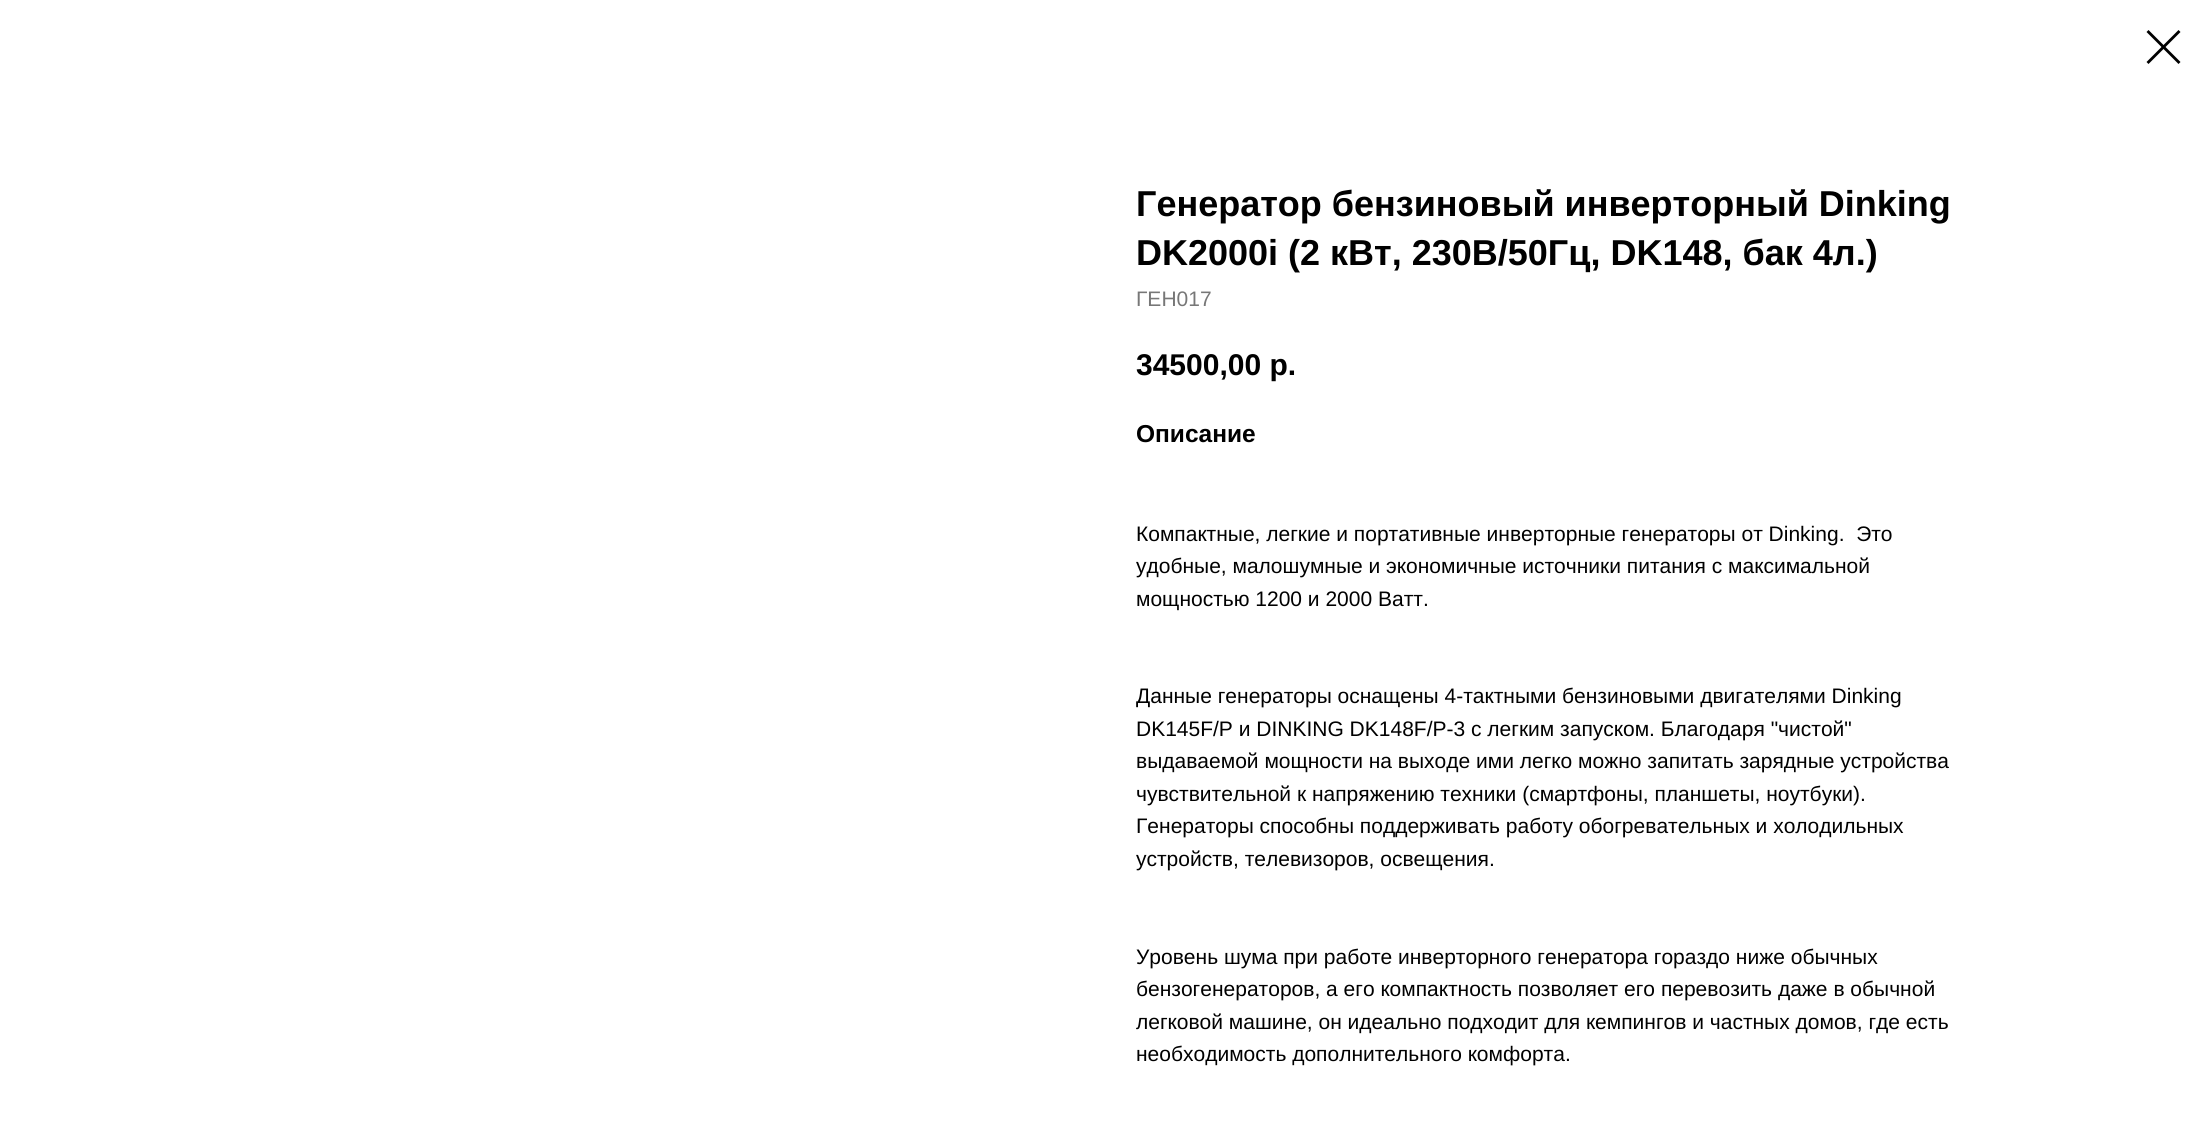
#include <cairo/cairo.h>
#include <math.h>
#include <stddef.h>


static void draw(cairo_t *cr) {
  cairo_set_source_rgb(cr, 1, 1, 1);
  cairo_paint(cr);
  cairo_set_source_rgb(cr, 0, 0, 0);
  cairo_set_fill_rule(cr, CAIRO_FILL_RULE_EVEN_ODD);
  cairo_new_path(cr);
  cairo_move_to(cr, 2146.5, 32);
  cairo_line_to(cr, 2148.5, 30);
  cairo_line_to(cr, 2180.5, 62);
  cairo_line_to(cr, 2178.5, 64);
  cairo_close_path(cr);
  cairo_fill(cr);
  cairo_new_path(cr);
  cairo_move_to(cr, 2178.5, 30);
  cairo_line_to(cr, 2180.5, 32);
  cairo_line_to(cr, 2148.5, 64);
  cairo_line_to(cr, 2146.5, 62);
  cairo_close_path(cr);
  cairo_fill(cr);
  cairo_select_font_face(cr, "Liberation Sans", CAIRO_FONT_SLANT_NORMAL, CAIRO_FONT_WEIGHT_BOLD);
  cairo_set_font_size(cr, 36);
  cairo_move_to(cr, 1136, 216);
  cairo_show_text(cr, "Генератор бензиновый инверторный Dinking");
  cairo_move_to(cr, 1136, 265);
  cairo_show_text(cr, "DK2000i (2 кВт, 230В/50Гц, DK148, бак 4л.)");
  cairo_select_font_face(cr, "Liberation Sans", CAIRO_FONT_SLANT_NORMAL, CAIRO_FONT_WEIGHT_NORMAL);
  cairo_set_font_size(cr, 21);
  cairo_set_source_rgb(cr, 119 / 255.0, 119 / 255.0, 119 / 255.0);
  cairo_move_to(cr, 1136, 306);
  cairo_show_text(cr, "ГЕН017");
  cairo_select_font_face(cr, "Liberation Sans", CAIRO_FONT_SLANT_NORMAL, CAIRO_FONT_WEIGHT_BOLD);
  cairo_set_font_size(cr, 30);
  cairo_set_source_rgb(cr, 0, 0, 0);
  cairo_move_to(cr, 1136, 375);
  cairo_show_text(cr, "34500,00 р.");
  cairo_set_font_size(cr, 24.5);
  cairo_move_to(cr, 1136, 442);
  cairo_show_text(cr, "Описание");
  cairo_select_font_face(cr, "Liberation Sans", CAIRO_FONT_SLANT_NORMAL, CAIRO_FONT_WEIGHT_NORMAL);
  cairo_set_font_size(cr, 21);
  cairo_move_to(cr, 1136, 541);
  cairo_show_text(cr, "Компактные, легкие и портативные инверторные генераторы от Dinking.  Это");
  cairo_move_to(cr, 1136, 573);
  cairo_show_text(cr, "удобные, малошумные и экономичные источники питания с максимальной");
  cairo_move_to(cr, 1136, 606);
  cairo_show_text(cr, "мощностью 1200 и 2000 Ватт.");
  cairo_move_to(cr, 1136, 703);
  cairo_show_text(cr, "Данные генераторы оснащены 4-тактными бензиновыми двигателями Dinking");
  cairo_move_to(cr, 1136, 736);
  cairo_show_text(cr, "DK145F/P и DINKING DK148F/P-3 с легким запуском. Благодаря \"чистой\"");
  cairo_move_to(cr, 1136, 768);
  cairo_show_text(cr, "выдаваемой мощности на выходе ими легко можно запитать зарядные устройства");
  cairo_move_to(cr, 1136, 801);
  cairo_show_text(cr, "чувствительной к напряжению техники (смартфоны, планшеты, ноутбуки).");
  cairo_move_to(cr, 1136, 833);
  cairo_show_text(cr, "Генераторы способны поддерживать работу обогревательных и холодильных");
  cairo_move_to(cr, 1136, 866);
  cairo_show_text(cr, "устройств, телевизоров, освещения.");
  cairo_move_to(cr, 1136, 964);
  cairo_show_text(cr, "Уровень шума при работе инверторного генератора гораздо ниже обычных");
  cairo_move_to(cr, 1136, 996);
  cairo_show_text(cr, "бензогенераторов, а его компактность позволяет его перевозить даже в обычной");
  cairo_move_to(cr, 1136, 1029);
  cairo_show_text(cr, "легковой машине, он идеально подходит для кемпингов и частных домов, где есть");
  cairo_move_to(cr, 1136, 1061);
  cairo_show_text(cr, "необходимость дополнительного комфорта.");
}

int main(void) {
  cairo_surface_t *surface = cairo_image_surface_create(CAIRO_FORMAT_RGB24, 2211, 1147);
  cairo_t *cr = cairo_create(surface);
  cairo_font_options_t *options = cairo_font_options_create();
  cairo_font_options_set_hint_metrics(options, CAIRO_HINT_METRICS_OFF);
  cairo_font_options_set_hint_style(options, CAIRO_HINT_STYLE_NONE);
  cairo_set_font_options(cr, options);
  cairo_set_miter_limit(cr, 4);
  draw(cr);
  cairo_surface_write_to_png(surface, "out.png");
  cairo_font_options_destroy(options);
  cairo_destroy(cr);
  cairo_surface_destroy(surface);
  return 0;
}
